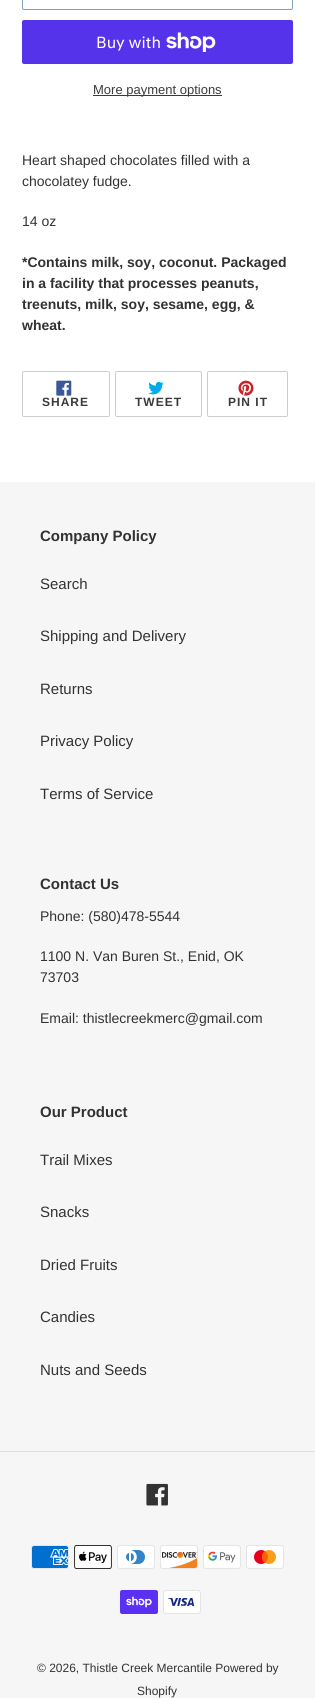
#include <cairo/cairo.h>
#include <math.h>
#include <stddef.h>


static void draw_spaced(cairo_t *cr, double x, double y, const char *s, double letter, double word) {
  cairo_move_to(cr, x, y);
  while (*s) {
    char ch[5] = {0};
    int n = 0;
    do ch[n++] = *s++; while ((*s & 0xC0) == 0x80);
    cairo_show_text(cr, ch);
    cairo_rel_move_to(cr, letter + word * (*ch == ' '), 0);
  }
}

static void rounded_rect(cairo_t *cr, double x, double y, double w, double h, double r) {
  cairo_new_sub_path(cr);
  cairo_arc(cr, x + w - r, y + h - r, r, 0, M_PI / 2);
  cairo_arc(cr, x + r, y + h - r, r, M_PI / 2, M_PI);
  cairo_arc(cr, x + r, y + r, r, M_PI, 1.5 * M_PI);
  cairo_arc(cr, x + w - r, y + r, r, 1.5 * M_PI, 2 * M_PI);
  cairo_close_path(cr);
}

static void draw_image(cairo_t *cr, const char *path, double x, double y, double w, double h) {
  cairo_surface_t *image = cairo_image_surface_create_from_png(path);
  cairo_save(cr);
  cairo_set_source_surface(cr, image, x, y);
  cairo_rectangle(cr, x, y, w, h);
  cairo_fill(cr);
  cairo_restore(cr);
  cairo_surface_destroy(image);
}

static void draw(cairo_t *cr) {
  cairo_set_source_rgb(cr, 1, 1, 1);
  cairo_paint(cr);
  rounded_rect(cr, 22.5, -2.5, 270, 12, 1.5);
  cairo_set_source_rgb(cr, 126 / 255.0, 159 / 255.0, 191 / 255.0);
  cairo_set_line_width(cr, 1);
  cairo_stroke(cr);
  cairo_set_source_rgb(cr, 84 / 255.0, 51 / 255.0, 235 / 255.0);
  rounded_rect(cr, 22, 20, 271, 44, 2);
  cairo_fill(cr);
  draw_image(cr, "images/1.png", 166, 32, 50, 20);
  cairo_set_source_rgb(cr, 58 / 255.0, 58 / 255.0, 58 / 255.0);
  cairo_rectangle(cr, 93, 95, 129, 1);
  cairo_fill(cr);
  rounded_rect(cr, 22.5, 371.5, 87, 45, 1.5);
  cairo_set_source_rgb(cr, 204 / 255.0, 204 / 255.0, 204 / 255.0);
  cairo_stroke(cr);
  draw_image(cr, "images/2.png", 56, 380, 16, 16);
  rounded_rect(cr, 115.5, 371.5, 86, 45, 1.5);
  cairo_stroke(cr);
  draw_image(cr, "images/3.png", 148, 381, 16, 14);
  rounded_rect(cr, 207.5, 371.5, 80, 45, 1.5);
  cairo_stroke(cr);
  draw_image(cr, "images/4.png", 238, 380, 16, 16);
  cairo_set_source_rgb(cr, 246 / 255.0, 246 / 255.0, 246 / 255.0);
  cairo_rectangle(cr, 0, 482, 315, 1216);
  cairo_fill(cr);
  cairo_set_source_rgb(cr, 221 / 255.0, 221 / 255.0, 221 / 255.0);
  cairo_rectangle(cr, 0, 1451, 315, 1);
  cairo_fill(cr);
  draw_image(cr, "images/5.png", 146, 1483, 22, 23);
  draw_image(cr, "images/6.png", 31, 1545, 38, 24);
  draw_image(cr, "images/7.png", 74, 1545, 38, 24);
  draw_image(cr, "images/8.png", 117, 1545, 38, 24);
  draw_image(cr, "images/9.png", 160, 1545, 38, 24);
  draw_image(cr, "images/10.png", 203, 1545, 38, 24);
  draw_image(cr, "images/11.png", 246, 1545, 38, 24);
  draw_image(cr, "images/12.png", 120, 1590, 38, 24);
  draw_image(cr, "images/13.png", 163, 1590, 38, 24);
  cairo_select_font_face(cr, "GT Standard", CAIRO_FONT_SLANT_NORMAL, CAIRO_FONT_WEIGHT_NORMAL);
  cairo_set_font_size(cr, 16);
  cairo_set_source_rgb(cr, 1, 1, 1);
  cairo_move_to(cr, 96, 48);
  cairo_show_text(cr, "Buy with");
  cairo_select_font_face(cr, "Liberation Sans", CAIRO_FONT_SLANT_NORMAL, CAIRO_FONT_WEIGHT_NORMAL);
  cairo_set_font_size(cr, 13);
  cairo_set_source_rgb(cr, 58 / 255.0, 58 / 255.0, 58 / 255.0);
  cairo_move_to(cr, 93, 94);
  cairo_show_text(cr, "More payment options");
  cairo_set_font_size(cr, 14);
  cairo_set_source_rgb(cr, 51 / 255.0, 50 / 255.0, 50 / 255.0);
  cairo_move_to(cr, 22, 165);
  cairo_show_text(cr, "Heart shaped chocolates filled with a");
  cairo_move_to(cr, 22, 186);
  cairo_show_text(cr, "chocolatey fudge.");
  cairo_move_to(cr, 22, 226);
  cairo_show_text(cr, "14 oz");
  cairo_select_font_face(cr, "Liberation Sans", CAIRO_FONT_SLANT_NORMAL, CAIRO_FONT_WEIGHT_BOLD);
  cairo_move_to(cr, 22, 267);
  cairo_show_text(cr, "*Contains milk, soy, coconut. Packaged");
  cairo_move_to(cr, 22, 288);
  cairo_show_text(cr, "in a facility that processes peanuts,");
  cairo_move_to(cr, 22, 309);
  cairo_show_text(cr, "treenuts, milk, soy, sesame, egg, &");
  cairo_move_to(cr, 22, 330);
  cairo_show_text(cr, "wheat.");
  cairo_set_font_size(cr, 12);
  cairo_set_source_rgb(cr, 58 / 255.0, 58 / 255.0, 58 / 255.0);
  draw_spaced(cr, 42, 406, "SHARE", 1, 0);
  draw_spaced(cr, 135, 406, "TWEET", 1, 0);
  draw_spaced(cr, 228, 406, "PIN IT", 1, 0);
  cairo_set_font_size(cr, 15);
  cairo_set_source_rgb(cr, 51 / 255.0, 50 / 255.0, 50 / 255.0);
  cairo_move_to(cr, 40, 541);
  cairo_show_text(cr, "Company Policy");
  cairo_select_font_face(cr, "Liberation Sans", CAIRO_FONT_SLANT_NORMAL, CAIRO_FONT_WEIGHT_NORMAL);
  cairo_move_to(cr, 40, 589);
  cairo_show_text(cr, "Search");
  cairo_move_to(cr, 40, 641);
  cairo_show_text(cr, "Shipping and Delivery");
  cairo_move_to(cr, 40, 694);
  cairo_show_text(cr, "Returns");
  cairo_move_to(cr, 40, 746);
  cairo_show_text(cr, "Privacy Policy");
  cairo_move_to(cr, 40, 799);
  cairo_show_text(cr, "Terms of Service");
  cairo_select_font_face(cr, "Liberation Sans", CAIRO_FONT_SLANT_NORMAL, CAIRO_FONT_WEIGHT_BOLD);
  cairo_move_to(cr, 40, 889);
  cairo_show_text(cr, "Contact Us");
  cairo_select_font_face(cr, "Liberation Sans", CAIRO_FONT_SLANT_NORMAL, CAIRO_FONT_WEIGHT_NORMAL);
  cairo_set_font_size(cr, 14);
  cairo_move_to(cr, 40, 921);
  cairo_show_text(cr, "Phone: (580)478-5544");
  cairo_move_to(cr, 40, 961);
  cairo_show_text(cr, "1100 N. Van Buren St., Enid, OK");
  cairo_move_to(cr, 40, 982);
  cairo_show_text(cr, "73703");
  cairo_move_to(cr, 40, 1023);
  cairo_show_text(cr, "Email: thistlecreekmerc@gmail.com");
  cairo_select_font_face(cr, "Liberation Sans", CAIRO_FONT_SLANT_NORMAL, CAIRO_FONT_WEIGHT_BOLD);
  cairo_set_font_size(cr, 15);
  cairo_move_to(cr, 40, 1117);
  cairo_show_text(cr, "Our Product");
  cairo_select_font_face(cr, "Liberation Sans", CAIRO_FONT_SLANT_NORMAL, CAIRO_FONT_WEIGHT_NORMAL);
  cairo_move_to(cr, 40, 1165);
  cairo_show_text(cr, "Trail Mixes");
  cairo_move_to(cr, 40, 1217);
  cairo_show_text(cr, "Snacks");
  cairo_move_to(cr, 40, 1270);
  cairo_show_text(cr, "Dried Fruits");
  cairo_move_to(cr, 40, 1322);
  cairo_show_text(cr, "Candies");
  cairo_move_to(cr, 40, 1375);
  cairo_show_text(cr, "Nuts and Seeds");
  cairo_set_font_size(cr, 12);
  cairo_move_to(cr, 37, 1672);
  cairo_show_text(cr, "© 2026, Thistle Creek Mercantile Powered by");
  cairo_move_to(cr, 137, 1695);
  cairo_show_text(cr, "Shopify");
}

int main(void) {
  cairo_surface_t *surface = cairo_image_surface_create(CAIRO_FORMAT_RGB24, 315, 1698);
  cairo_t *cr = cairo_create(surface);
  cairo_font_options_t *options = cairo_font_options_create();
  cairo_font_options_set_hint_metrics(options, CAIRO_HINT_METRICS_OFF);
  cairo_font_options_set_hint_style(options, CAIRO_HINT_STYLE_NONE);
  cairo_set_font_options(cr, options);
  cairo_set_miter_limit(cr, 4);
  draw(cr);
  cairo_surface_write_to_png(surface, "out.png");
  cairo_font_options_destroy(options);
  cairo_destroy(cr);
  cairo_surface_destroy(surface);
  return 0;
}
